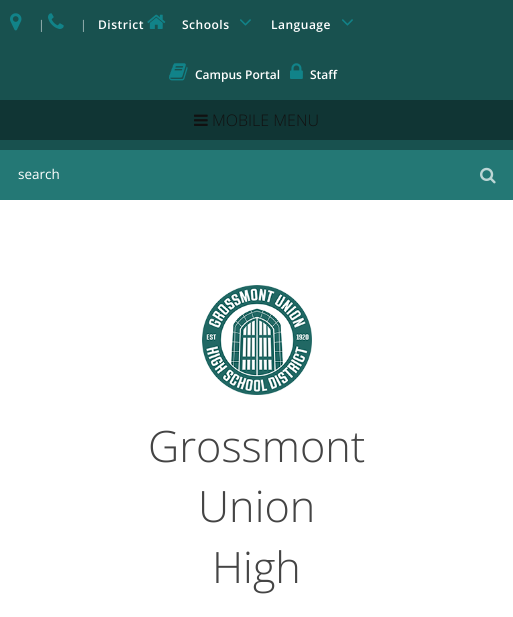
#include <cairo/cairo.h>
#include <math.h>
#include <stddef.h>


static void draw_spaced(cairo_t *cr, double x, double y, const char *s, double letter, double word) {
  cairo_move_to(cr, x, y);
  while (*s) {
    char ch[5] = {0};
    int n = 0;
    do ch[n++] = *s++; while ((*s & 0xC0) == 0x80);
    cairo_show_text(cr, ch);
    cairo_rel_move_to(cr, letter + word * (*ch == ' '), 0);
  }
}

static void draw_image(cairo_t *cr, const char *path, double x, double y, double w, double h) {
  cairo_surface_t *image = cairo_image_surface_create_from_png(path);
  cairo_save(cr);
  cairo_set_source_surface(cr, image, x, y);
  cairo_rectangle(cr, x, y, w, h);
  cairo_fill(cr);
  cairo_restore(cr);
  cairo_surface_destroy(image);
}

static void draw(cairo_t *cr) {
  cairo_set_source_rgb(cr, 24 / 255.0, 81 / 255.0, 79 / 255.0);
  cairo_paint(cr);
  draw_image(cr, "images/1.png", 10, 13, 12, 18);
  draw_image(cr, "images/2.png", 48, 13, 16, 16);
  draw_image(cr, "images/3.png", 147, 14, 19, 15);
  draw_image(cr, "images/4.png", 240, 19, 11, 7);
  draw_image(cr, "images/4.png", 342, 19, 11, 7);
  draw_image(cr, "images/5.png", 169, 63, 19, 18);
  draw_image(cr, "images/6.png", 290, 63, 13, 16);
  cairo_set_source_rgb(cr, 36 / 255.0, 120 / 255.0, 117 / 255.0);
  cairo_rectangle(cr, 0, 150, 513, 50);
  cairo_fill(cr);
  draw_image(cr, "images/7.png", 480, 167, 16, 17);
  cairo_set_source_rgb(cr, 16 / 255.0, 53 / 255.0, 52 / 255.0);
  cairo_rectangle(cr, 0, 100, 513, 40);
  cairo_fill(cr);
  draw_image(cr, "images/8.png", 194, 114, 14, 12);
  cairo_set_source_rgb(cr, 1, 1, 1);
  cairo_rectangle(cr, 0, 200, 513, 417);
  cairo_fill(cr);
  draw_image(cr, "images/9.png", 202, 285, 110, 110);
  cairo_select_font_face(cr, "Open Sans Light", CAIRO_FONT_SLANT_NORMAL, CAIRO_FONT_WEIGHT_NORMAL);
  cairo_set_font_size(cr, 12);
  draw_spaced(cr, 38, 29, "|", 0.5, 0);
  draw_spaced(cr, 80, 29, "|", 0.5, 0);
  cairo_select_font_face(cr, "Open Sans SemiBold", CAIRO_FONT_SLANT_NORMAL, CAIRO_FONT_WEIGHT_NORMAL);
  draw_spaced(cr, 98, 29, "District", 0.5, 0);
  draw_spaced(cr, 182, 29, "Schools", 0.5, 0);
  draw_spaced(cr, 271, 29, "Language", 0.5, 0);
  cairo_move_to(cr, 195, 79);
  cairo_show_text(cr, "Campus Portal");
  cairo_move_to(cr, 310, 79);
  cairo_show_text(cr, "Staff");
  cairo_select_font_face(cr, "Open Sans", CAIRO_FONT_SLANT_NORMAL, CAIRO_FONT_WEIGHT_NORMAL);
  cairo_set_font_size(cr, 13.5);
  cairo_move_to(cr, 18, 179);
  cairo_show_text(cr, "search");
  cairo_select_font_face(cr, "Open Sans Light", CAIRO_FONT_SLANT_NORMAL, CAIRO_FONT_WEIGHT_NORMAL);
  cairo_set_font_size(cr, 16);
  cairo_set_source_rgb(cr, 17 / 255.0, 17 / 255.0, 17 / 255.0);
  cairo_move_to(cr, 212, 126);
  cairo_show_text(cr, "MOBILE MENU");
  cairo_set_font_size(cr, 43.25);
  cairo_set_source_rgb(cr, 68 / 255.0, 68 / 255.0, 68 / 255.0);
  cairo_move_to(cr, 148, 462);
  cairo_show_text(cr, "Grossmont");
  cairo_move_to(cr, 198, 522);
  cairo_show_text(cr, "Union");
  cairo_move_to(cr, 212, 583);
  cairo_show_text(cr, "High");
}

int main(void) {
  cairo_surface_t *surface = cairo_image_surface_create(CAIRO_FORMAT_RGB24, 513, 617);
  cairo_t *cr = cairo_create(surface);
  cairo_font_options_t *options = cairo_font_options_create();
  cairo_font_options_set_hint_metrics(options, CAIRO_HINT_METRICS_OFF);
  cairo_font_options_set_hint_style(options, CAIRO_HINT_STYLE_NONE);
  cairo_set_font_options(cr, options);
  cairo_set_miter_limit(cr, 4);
  draw(cr);
  cairo_surface_write_to_png(surface, "out.png");
  cairo_font_options_destroy(options);
  cairo_destroy(cr);
  cairo_surface_destroy(surface);
  return 0;
}
